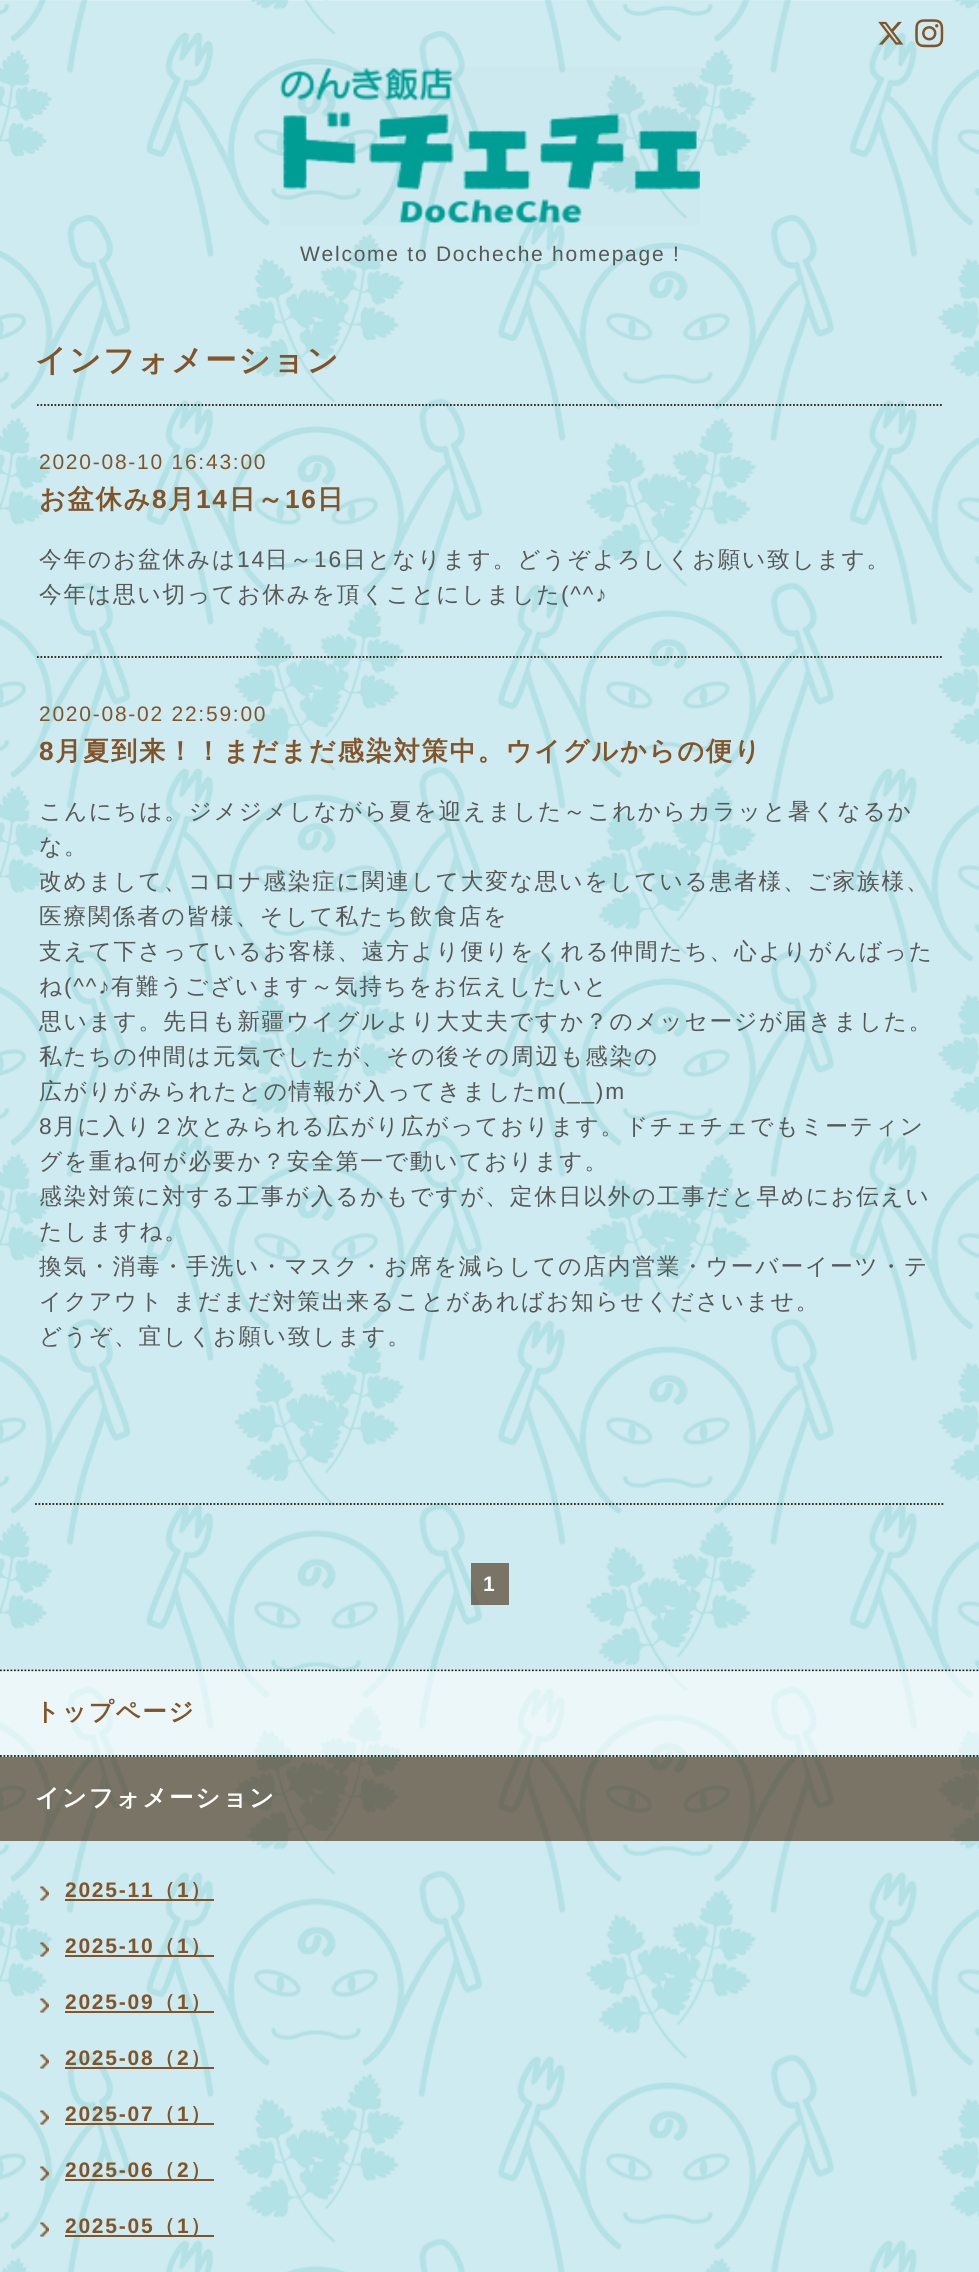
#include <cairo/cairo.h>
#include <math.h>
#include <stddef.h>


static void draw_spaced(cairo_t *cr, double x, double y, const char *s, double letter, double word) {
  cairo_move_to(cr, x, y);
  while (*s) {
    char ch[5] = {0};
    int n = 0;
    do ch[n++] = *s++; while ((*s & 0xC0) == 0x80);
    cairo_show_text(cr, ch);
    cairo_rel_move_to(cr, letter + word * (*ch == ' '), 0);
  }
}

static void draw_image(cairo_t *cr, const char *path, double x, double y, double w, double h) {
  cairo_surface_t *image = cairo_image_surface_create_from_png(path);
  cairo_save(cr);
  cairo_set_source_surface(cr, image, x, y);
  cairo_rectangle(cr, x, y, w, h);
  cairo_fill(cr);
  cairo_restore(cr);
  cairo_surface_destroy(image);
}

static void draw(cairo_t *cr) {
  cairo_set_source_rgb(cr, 1, 1, 1);
  cairo_paint(cr);
  draw_image(cr, "images/1.png", 0, 0, 979, 2272);
  draw_image(cr, "images/2.png", 878, 21, 26, 24);
  draw_image(cr, "images/3.png", 915, 19, 29, 29);
  draw_image(cr, "images/4.png", 280, 67, 420, 158);
  cairo_new_path(cr);
  cairo_move_to(cr, 35, 1504);
  cairo_line_to(cr, 945, 1504);
  cairo_set_source_rgb(cr, 45 / 255.0, 25 / 255.0, 5 / 255.0);
  cairo_set_line_width(cr, 1.8);
  cairo_set_dash(cr, (double[]){1.75, 1.75}, 2, 0);
  cairo_stroke(cr);
  cairo_new_path(cr);
  cairo_move_to(cr, 37, 405);
  cairo_line_to(cr, 943, 405);
  cairo_stroke(cr);
  cairo_new_path(cr);
  cairo_move_to(cr, 37, 657);
  cairo_line_to(cr, 943, 657);
  cairo_stroke(cr);
  cairo_set_source_rgba(cr, 67 / 255.0, 38 / 255.0, 10 / 255.0, 0.6);
  cairo_rectangle(cr, 471, 1563, 38, 42);
  cairo_fill(cr);
  cairo_new_path(cr);
  cairo_move_to(cr, 0, 1670.5);
  cairo_line_to(cr, 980, 1670.5);
  cairo_set_source_rgb(cr, 45 / 255.0, 25 / 255.0, 5 / 255.0);
  cairo_stroke(cr);
  cairo_new_path(cr);
  cairo_move_to(cr, 0, 1756);
  cairo_line_to(cr, 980, 1756);
  cairo_stroke(cr);
  cairo_set_source_rgba(cr, 1, 1, 1, 0.6);
  cairo_rectangle(cr, 0, 1671, 979, 84);
  cairo_fill(cr);
  cairo_set_source_rgba(cr, 67 / 255.0, 38 / 255.0, 10 / 255.0, 0.6);
  cairo_rectangle(cr, 0, 1757, 979, 84);
  cairo_fill(cr);
  draw_image(cr, "images/5.png", 40, 1886, 9, 15);
  cairo_set_source_rgb(cr, 130 / 255.0, 84 / 255.0, 40 / 255.0);
  cairo_rectangle(cr, 65, 1899, 149, 2);
  cairo_fill(cr);
  draw_image(cr, "images/6.png", 40, 1942, 9, 15);
  cairo_rectangle(cr, 65, 1955, 149, 2);
  cairo_fill(cr);
  draw_image(cr, "images/5.png", 40, 1998, 9, 15);
  cairo_rectangle(cr, 65, 2011, 149, 2);
  cairo_fill(cr);
  draw_image(cr, "images/7.png", 40, 2054, 9, 15);
  cairo_rectangle(cr, 65, 2067, 149, 2);
  cairo_fill(cr);
  draw_image(cr, "images/7.png", 40, 2110, 9, 15);
  cairo_rectangle(cr, 65, 2123, 149, 2);
  cairo_fill(cr);
  draw_image(cr, "images/8.png", 40, 2166, 9, 15);
  cairo_rectangle(cr, 65, 2179, 149, 2);
  cairo_fill(cr);
  draw_image(cr, "images/9.png", 40, 2222, 9, 15);
  cairo_rectangle(cr, 65, 2235, 149, 2);
  cairo_fill(cr);
  cairo_select_font_face(cr, "Liberation Sans", CAIRO_FONT_SLANT_NORMAL, CAIRO_FONT_WEIGHT_NORMAL);
  cairo_set_font_size(cr, 21);
  cairo_set_source_rgb(cr, 87 / 255.0, 87 / 255.0, 87 / 255.0);
  draw_spaced(cr, 300, 261, "Welcome to Docheche homepage !", 1.75, 0);
  cairo_select_font_face(cr, "WenQuanYi Zen Hei", CAIRO_FONT_SLANT_NORMAL, CAIRO_FONT_WEIGHT_BOLD);
  cairo_set_font_size(cr, 31.5);
  cairo_set_source_rgb(cr, 130 / 255.0, 84 / 255.0, 40 / 255.0);
  draw_spaced(cr, 35, 371, "インフォメーション", 1.75, 0);
  cairo_select_font_face(cr, "Liberation Sans", CAIRO_FONT_SLANT_NORMAL, CAIRO_FONT_WEIGHT_NORMAL);
  cairo_set_font_size(cr, 21);
  draw_spaced(cr, 39, 469, "2020-08-10 16:43:00", 1.75, 0);
  cairo_select_font_face(cr, "WenQuanYi Zen Hei", CAIRO_FONT_SLANT_NORMAL, CAIRO_FONT_WEIGHT_BOLD);
  cairo_set_font_size(cr, 26.25);
  draw_spaced(cr, 39, 508, "お盆休み", 1.75, 0);
  cairo_select_font_face(cr, "Liberation Sans", CAIRO_FONT_SLANT_NORMAL, CAIRO_FONT_WEIGHT_BOLD);
  draw_spaced(cr, 152, 508, "8", 1.75, 0);
  cairo_select_font_face(cr, "WenQuanYi Zen Hei", CAIRO_FONT_SLANT_NORMAL, CAIRO_FONT_WEIGHT_BOLD);
  draw_spaced(cr, 168, 508, "月", 1.75, 0);
  cairo_select_font_face(cr, "Liberation Sans", CAIRO_FONT_SLANT_NORMAL, CAIRO_FONT_WEIGHT_BOLD);
  draw_spaced(cr, 196, 508, "14", 1.75, 0);
  cairo_select_font_face(cr, "WenQuanYi Zen Hei", CAIRO_FONT_SLANT_NORMAL, CAIRO_FONT_WEIGHT_BOLD);
  draw_spaced(cr, 229, 508, "日～", 1.75, 0);
  cairo_select_font_face(cr, "Liberation Sans", CAIRO_FONT_SLANT_NORMAL, CAIRO_FONT_WEIGHT_BOLD);
  draw_spaced(cr, 285, 508, "16", 1.75, 0);
  cairo_select_font_face(cr, "WenQuanYi Zen Hei", CAIRO_FONT_SLANT_NORMAL, CAIRO_FONT_WEIGHT_BOLD);
  draw_spaced(cr, 317, 508, "日", 1.75, 0);
  cairo_select_font_face(cr, "WenQuanYi Zen Hei Medium", CAIRO_FONT_SLANT_NORMAL, CAIRO_FONT_WEIGHT_NORMAL);
  cairo_set_font_size(cr, 22.75);
  cairo_set_source_rgb(cr, 87 / 255.0, 87 / 255.0, 87 / 255.0);
  draw_spaced(cr, 39, 567, "今年のお盆休みは", 1.75, 0);
  cairo_select_font_face(cr, "Liberation Sans", CAIRO_FONT_SLANT_NORMAL, CAIRO_FONT_WEIGHT_NORMAL);
  draw_spaced(cr, 237, 567, "14", 1.75, 0);
  cairo_select_font_face(cr, "WenQuanYi Zen Hei Medium", CAIRO_FONT_SLANT_NORMAL, CAIRO_FONT_WEIGHT_NORMAL);
  draw_spaced(cr, 265, 567, "日～", 1.75, 0);
  cairo_select_font_face(cr, "Liberation Sans", CAIRO_FONT_SLANT_NORMAL, CAIRO_FONT_WEIGHT_NORMAL);
  draw_spaced(cr, 314, 567, "16", 1.75, 0);
  cairo_select_font_face(cr, "WenQuanYi Zen Hei Medium", CAIRO_FONT_SLANT_NORMAL, CAIRO_FONT_WEIGHT_NORMAL);
  draw_spaced(cr, 343, 567, "日となります。どうぞよろしくお願い致します。", 1.75, 0);
  draw_spaced(cr, 39, 602, "今年は思い切ってお休みを頂くことにしました", 1.75, 0);
  cairo_select_font_face(cr, "Liberation Sans", CAIRO_FONT_SLANT_NORMAL, CAIRO_FONT_WEIGHT_NORMAL);
  draw_spaced(cr, 561, 602, "(^^♪", 1.75, 0);
  cairo_set_font_size(cr, 21);
  cairo_set_source_rgb(cr, 130 / 255.0, 84 / 255.0, 40 / 255.0);
  draw_spaced(cr, 39, 721, "2020-08-02 22:59:00", 1.75, 0);
  cairo_select_font_face(cr, "Liberation Sans", CAIRO_FONT_SLANT_NORMAL, CAIRO_FONT_WEIGHT_BOLD);
  cairo_set_font_size(cr, 26.25);
  draw_spaced(cr, 39, 760, "8", 1.75, 0);
  cairo_select_font_face(cr, "WenQuanYi Zen Hei", CAIRO_FONT_SLANT_NORMAL, CAIRO_FONT_WEIGHT_BOLD);
  draw_spaced(cr, 55, 760, "月夏到来！！まだまだ感染対策中。ウイグルからの便り", 1.75, 0);
  cairo_select_font_face(cr, "WenQuanYi Zen Hei Medium", CAIRO_FONT_SLANT_NORMAL, CAIRO_FONT_WEIGHT_NORMAL);
  cairo_set_font_size(cr, 22.75);
  cairo_set_source_rgb(cr, 87 / 255.0, 87 / 255.0, 87 / 255.0);
  draw_spaced(cr, 39, 819, "こんにちは。ジメジメしながら夏を迎えました～これからカラッと暑くなるか", 1.75, 0);
  draw_spaced(cr, 39, 854, "な。", 1.75, 0);
  draw_spaced(cr, 39, 889, "改めまして、コロナ感染症に関連して大変な思いをしている患者様、ご家族様、", 1.75, 0);
  draw_spaced(cr, 39, 924, "医療関係者の皆様、そして私たち飲食店を", 1.75, 0);
  draw_spaced(cr, 39, 959, "支えて下さっているお客様、遠方より便りをくれる仲間たち、心よりがんばった", 1.75, 0);
  draw_spaced(cr, 39, 994, "ね", 1.75, 0);
  cairo_select_font_face(cr, "Liberation Sans", CAIRO_FONT_SLANT_NORMAL, CAIRO_FONT_WEIGHT_NORMAL);
  draw_spaced(cr, 64, 994, "(^^♪", 1.75, 0);
  cairo_select_font_face(cr, "WenQuanYi Zen Hei Medium", CAIRO_FONT_SLANT_NORMAL, CAIRO_FONT_WEIGHT_NORMAL);
  draw_spaced(cr, 111, 994, "有難うございます～気持ちをお伝えしたいと", 1.75, 0);
  draw_spaced(cr, 39, 1029, "思います。先日も新疆ウイグルより大丈夫ですか？のメッセージが届きました。", 1.75, 0);
  draw_spaced(cr, 39, 1064, "私たちの仲間は元気でしたが、その後その周辺も感染の", 1.75, 0);
  draw_spaced(cr, 39, 1099, "広がりがみられたとの情報が入ってきました", 1.75, 0);
  cairo_select_font_face(cr, "Liberation Sans", CAIRO_FONT_SLANT_NORMAL, CAIRO_FONT_WEIGHT_NORMAL);
  draw_spaced(cr, 537, 1099, "m(__)m", 1.75, 0);
  draw_spaced(cr, 39, 1134, "8", 1.75, 0);
  cairo_select_font_face(cr, "WenQuanYi Zen Hei Medium", CAIRO_FONT_SLANT_NORMAL, CAIRO_FONT_WEIGHT_NORMAL);
  draw_spaced(cr, 53, 1134, "月に入り２次とみられる広がり広がっております。ドチェチェでもミーティン", 1.75, 0);
  draw_spaced(cr, 39, 1169, "グを重ね何が必要か？安全第一で動いております。", 1.75, 0);
  draw_spaced(cr, 39, 1204, "感染対策に対する工事が入るかもですが、定休日以外の工事だと早めにお伝えい", 1.75, 0);
  draw_spaced(cr, 39, 1239, "たしますね。", 1.75, 0);
  draw_spaced(cr, 39, 1274, "換気・消毒・手洗い・マスク・お席を減らしての店内営業・ウーバーイーツ・テ", 1.75, 0);
  draw_spaced(cr, 39, 1309, "イクアウト まだまだ対策出来ることがあればお知らせくださいませ。", 1.75, 0);
  draw_spaced(cr, 39, 1344, "どうぞ、宜しくお願い致します。", 1.75, 0);
  cairo_select_font_face(cr, "Liberation Sans", CAIRO_FONT_SLANT_NORMAL, CAIRO_FONT_WEIGHT_BOLD);
  cairo_set_font_size(cr, 21);
  cairo_set_source_rgb(cr, 1, 1, 1);
  draw_spaced(cr, 483, 1591, "1", 1.75, 0);
  cairo_select_font_face(cr, "WenQuanYi Zen Hei", CAIRO_FONT_SLANT_NORMAL, CAIRO_FONT_WEIGHT_BOLD);
  cairo_set_font_size(cr, 24.5);
  cairo_set_source_rgb(cr, 130 / 255.0, 84 / 255.0, 40 / 255.0);
  draw_spaced(cr, 35, 1720, "トップページ", 1.75, 0);
  cairo_set_source_rgb(cr, 1, 1, 1);
  draw_spaced(cr, 35, 1806, "インフォメーション", 1.75, 0);
  cairo_select_font_face(cr, "Liberation Sans", CAIRO_FONT_SLANT_NORMAL, CAIRO_FONT_WEIGHT_BOLD);
  cairo_set_font_size(cr, 21);
  cairo_set_source_rgb(cr, 130 / 255.0, 84 / 255.0, 40 / 255.0);
  draw_spaced(cr, 65, 1897, "2025-11", 1.75, 0);
  cairo_select_font_face(cr, "WenQuanYi Zen Hei", CAIRO_FONT_SLANT_NORMAL, CAIRO_FONT_WEIGHT_BOLD);
  draw_spaced(cr, 154, 1897, "（", 1.75, 0);
  cairo_select_font_face(cr, "Liberation Sans", CAIRO_FONT_SLANT_NORMAL, CAIRO_FONT_WEIGHT_BOLD);
  draw_spaced(cr, 177, 1897, "1", 1.75, 0);
  cairo_select_font_face(cr, "WenQuanYi Zen Hei", CAIRO_FONT_SLANT_NORMAL, CAIRO_FONT_WEIGHT_BOLD);
  draw_spaced(cr, 190, 1897, "）", 1.75, 0);
  cairo_select_font_face(cr, "Liberation Sans", CAIRO_FONT_SLANT_NORMAL, CAIRO_FONT_WEIGHT_BOLD);
  draw_spaced(cr, 65, 1953, "2025-10", 1.75, 0);
  cairo_select_font_face(cr, "WenQuanYi Zen Hei", CAIRO_FONT_SLANT_NORMAL, CAIRO_FONT_WEIGHT_BOLD);
  draw_spaced(cr, 154, 1953, "（", 1.75, 0);
  cairo_select_font_face(cr, "Liberation Sans", CAIRO_FONT_SLANT_NORMAL, CAIRO_FONT_WEIGHT_BOLD);
  draw_spaced(cr, 177, 1953, "1", 1.75, 0);
  cairo_select_font_face(cr, "WenQuanYi Zen Hei", CAIRO_FONT_SLANT_NORMAL, CAIRO_FONT_WEIGHT_BOLD);
  draw_spaced(cr, 190, 1953, "）", 1.75, 0);
  cairo_select_font_face(cr, "Liberation Sans", CAIRO_FONT_SLANT_NORMAL, CAIRO_FONT_WEIGHT_BOLD);
  draw_spaced(cr, 65, 2009, "2025-09", 1.75, 0);
  cairo_select_font_face(cr, "WenQuanYi Zen Hei", CAIRO_FONT_SLANT_NORMAL, CAIRO_FONT_WEIGHT_BOLD);
  draw_spaced(cr, 154, 2009, "（", 1.75, 0);
  cairo_select_font_face(cr, "Liberation Sans", CAIRO_FONT_SLANT_NORMAL, CAIRO_FONT_WEIGHT_BOLD);
  draw_spaced(cr, 177, 2009, "1", 1.75, 0);
  cairo_select_font_face(cr, "WenQuanYi Zen Hei", CAIRO_FONT_SLANT_NORMAL, CAIRO_FONT_WEIGHT_BOLD);
  draw_spaced(cr, 190, 2009, "）", 1.75, 0);
  cairo_select_font_face(cr, "Liberation Sans", CAIRO_FONT_SLANT_NORMAL, CAIRO_FONT_WEIGHT_BOLD);
  draw_spaced(cr, 65, 2065, "2025-08", 1.75, 0);
  cairo_select_font_face(cr, "WenQuanYi Zen Hei", CAIRO_FONT_SLANT_NORMAL, CAIRO_FONT_WEIGHT_BOLD);
  draw_spaced(cr, 154, 2065, "（", 1.75, 0);
  cairo_select_font_face(cr, "Liberation Sans", CAIRO_FONT_SLANT_NORMAL, CAIRO_FONT_WEIGHT_BOLD);
  draw_spaced(cr, 177, 2065, "2", 1.75, 0);
  cairo_select_font_face(cr, "WenQuanYi Zen Hei", CAIRO_FONT_SLANT_NORMAL, CAIRO_FONT_WEIGHT_BOLD);
  draw_spaced(cr, 190, 2065, "）", 1.75, 0);
  cairo_select_font_face(cr, "Liberation Sans", CAIRO_FONT_SLANT_NORMAL, CAIRO_FONT_WEIGHT_BOLD);
  draw_spaced(cr, 65, 2121, "2025-07", 1.75, 0);
  cairo_select_font_face(cr, "WenQuanYi Zen Hei", CAIRO_FONT_SLANT_NORMAL, CAIRO_FONT_WEIGHT_BOLD);
  draw_spaced(cr, 154, 2121, "（", 1.75, 0);
  cairo_select_font_face(cr, "Liberation Sans", CAIRO_FONT_SLANT_NORMAL, CAIRO_FONT_WEIGHT_BOLD);
  draw_spaced(cr, 177, 2121, "1", 1.75, 0);
  cairo_select_font_face(cr, "WenQuanYi Zen Hei", CAIRO_FONT_SLANT_NORMAL, CAIRO_FONT_WEIGHT_BOLD);
  draw_spaced(cr, 190, 2121, "）", 1.75, 0);
  cairo_select_font_face(cr, "Liberation Sans", CAIRO_FONT_SLANT_NORMAL, CAIRO_FONT_WEIGHT_BOLD);
  draw_spaced(cr, 65, 2177, "2025-06", 1.75, 0);
  cairo_select_font_face(cr, "WenQuanYi Zen Hei", CAIRO_FONT_SLANT_NORMAL, CAIRO_FONT_WEIGHT_BOLD);
  draw_spaced(cr, 154, 2177, "（", 1.75, 0);
  cairo_select_font_face(cr, "Liberation Sans", CAIRO_FONT_SLANT_NORMAL, CAIRO_FONT_WEIGHT_BOLD);
  draw_spaced(cr, 177, 2177, "2", 1.75, 0);
  cairo_select_font_face(cr, "WenQuanYi Zen Hei", CAIRO_FONT_SLANT_NORMAL, CAIRO_FONT_WEIGHT_BOLD);
  draw_spaced(cr, 190, 2177, "）", 1.75, 0);
  cairo_select_font_face(cr, "Liberation Sans", CAIRO_FONT_SLANT_NORMAL, CAIRO_FONT_WEIGHT_BOLD);
  draw_spaced(cr, 65, 2233, "2025-05", 1.75, 0);
  cairo_select_font_face(cr, "WenQuanYi Zen Hei", CAIRO_FONT_SLANT_NORMAL, CAIRO_FONT_WEIGHT_BOLD);
  draw_spaced(cr, 154, 2233, "（", 1.75, 0);
  cairo_select_font_face(cr, "Liberation Sans", CAIRO_FONT_SLANT_NORMAL, CAIRO_FONT_WEIGHT_BOLD);
  draw_spaced(cr, 177, 2233, "1", 1.75, 0);
  cairo_select_font_face(cr, "WenQuanYi Zen Hei", CAIRO_FONT_SLANT_NORMAL, CAIRO_FONT_WEIGHT_BOLD);
  draw_spaced(cr, 190, 2233, "）", 1.75, 0);
}

int main(void) {
  cairo_surface_t *surface = cairo_image_surface_create(CAIRO_FORMAT_RGB24, 979, 2272);
  cairo_t *cr = cairo_create(surface);
  cairo_font_options_t *options = cairo_font_options_create();
  cairo_font_options_set_hint_metrics(options, CAIRO_HINT_METRICS_OFF);
  cairo_font_options_set_hint_style(options, CAIRO_HINT_STYLE_NONE);
  cairo_set_font_options(cr, options);
  cairo_set_miter_limit(cr, 4);
  draw(cr);
  cairo_surface_write_to_png(surface, "out.png");
  cairo_font_options_destroy(options);
  cairo_destroy(cr);
  cairo_surface_destroy(surface);
  return 0;
}
